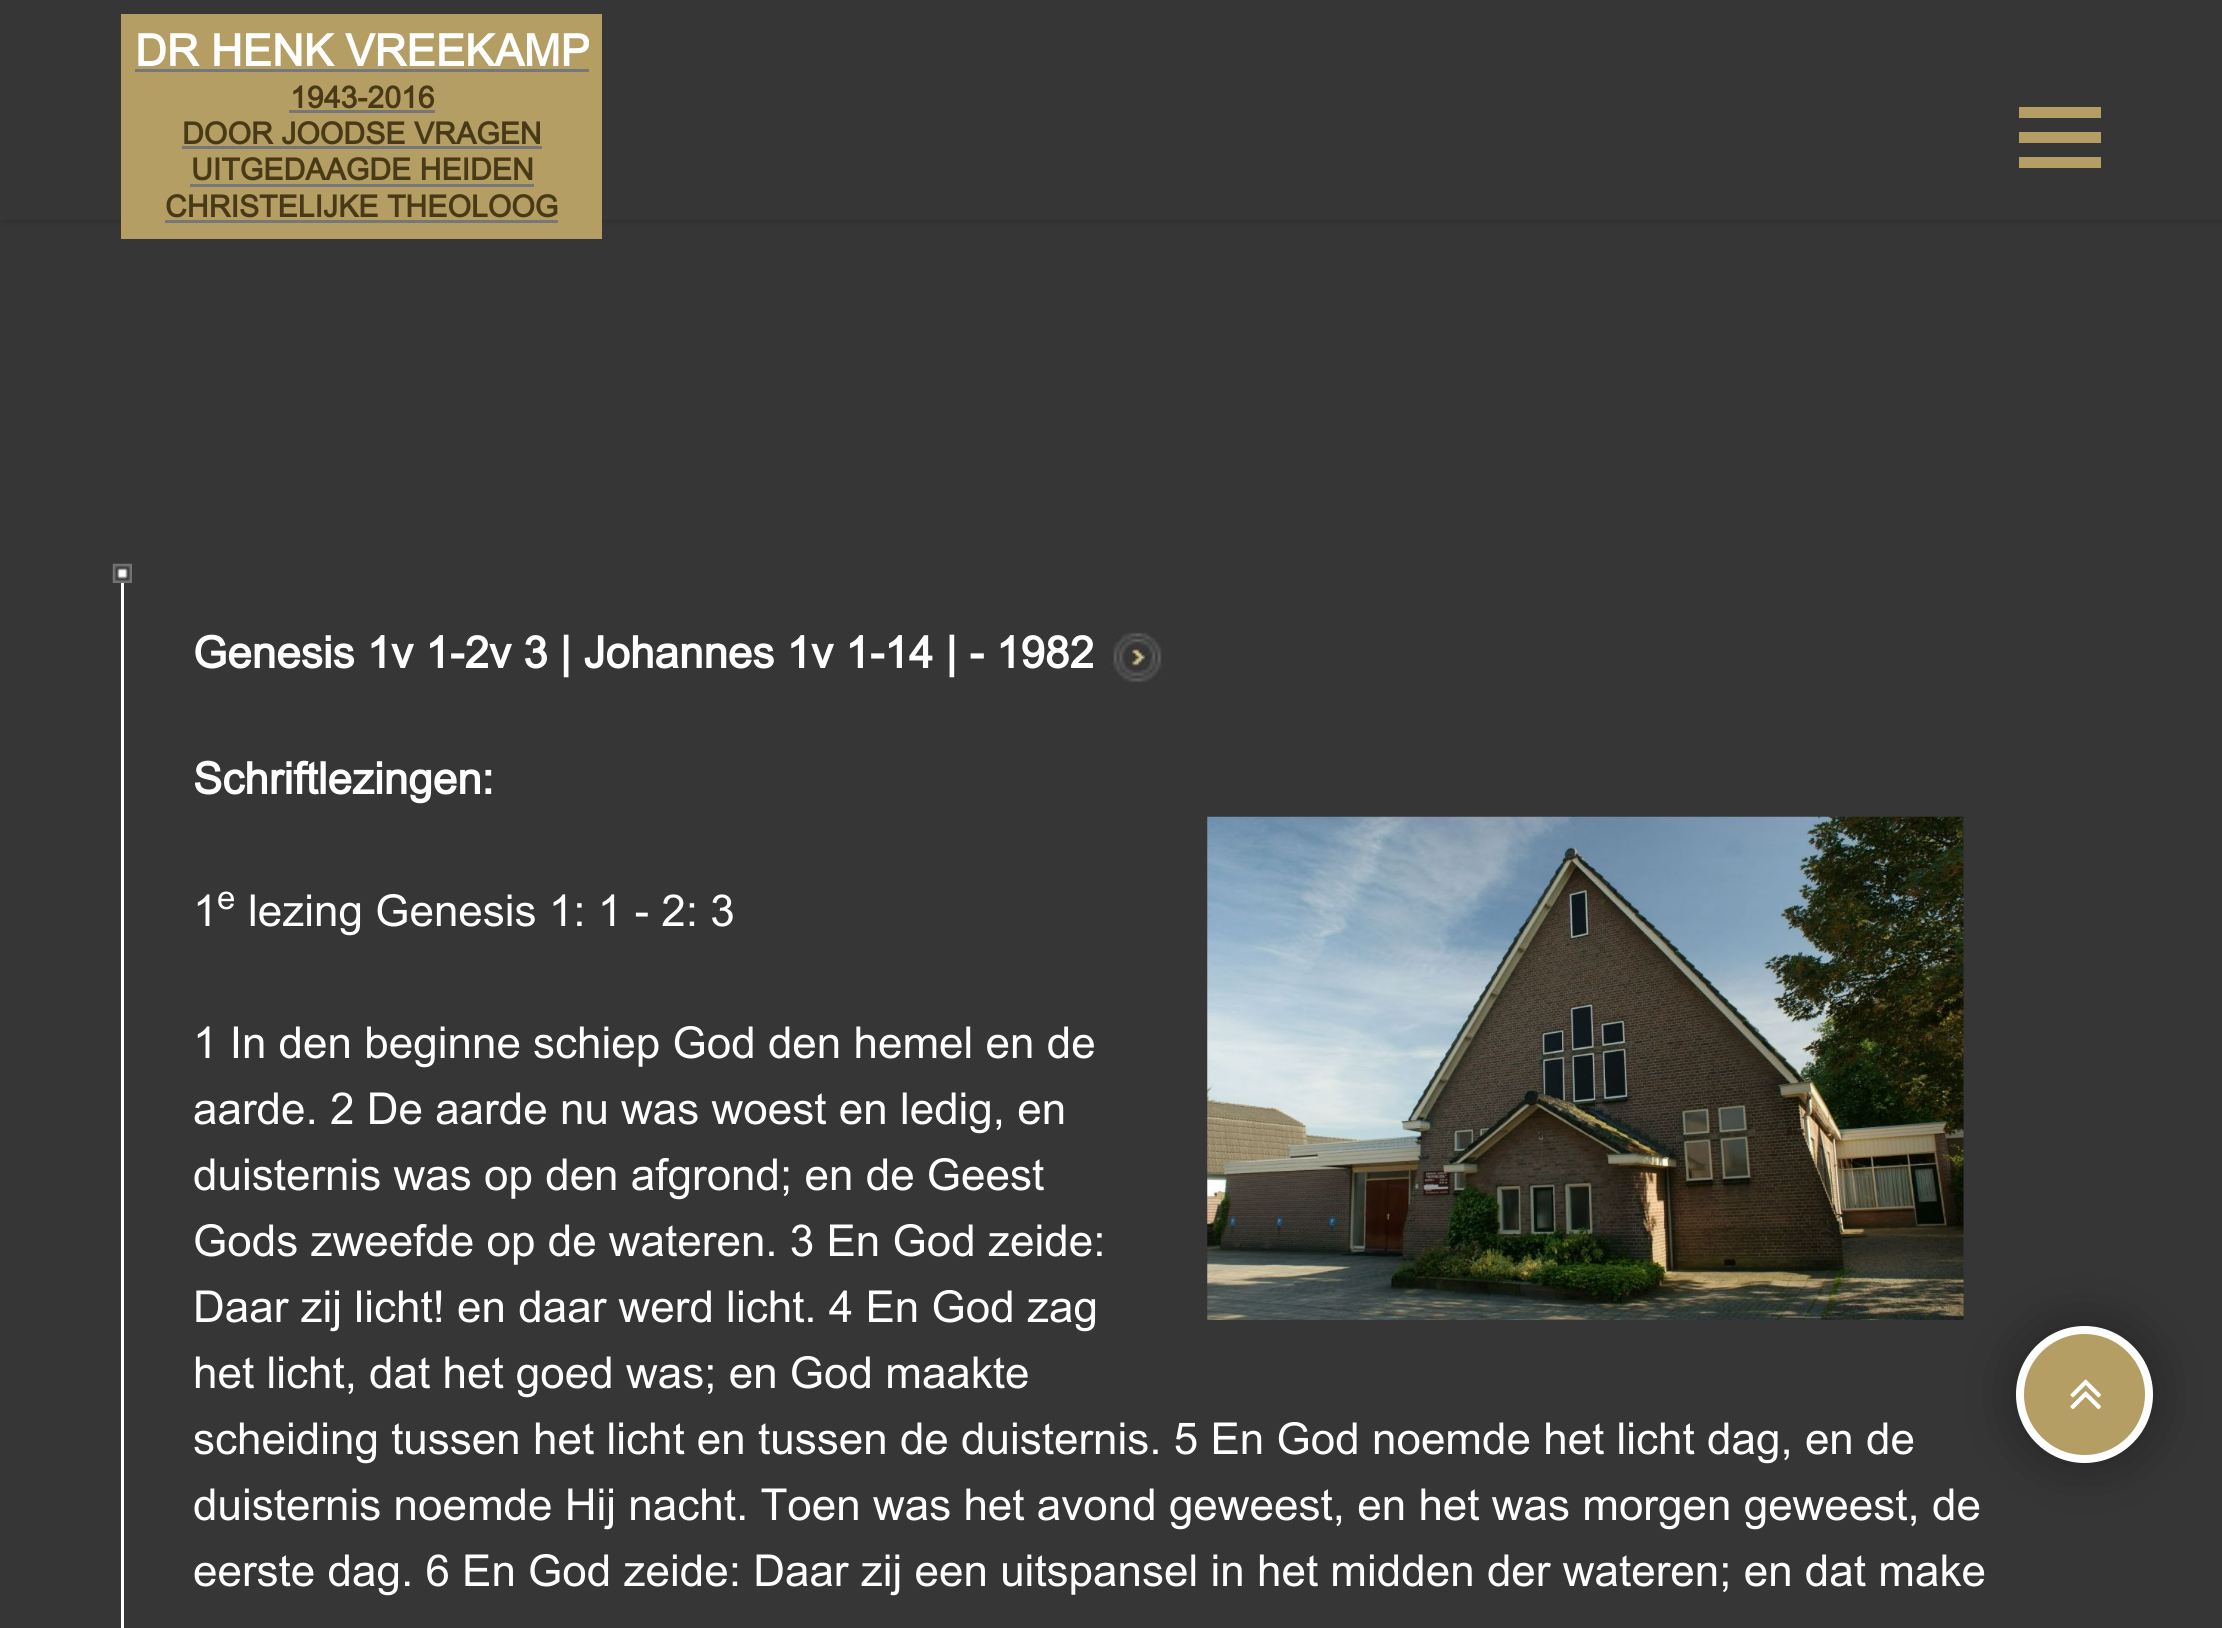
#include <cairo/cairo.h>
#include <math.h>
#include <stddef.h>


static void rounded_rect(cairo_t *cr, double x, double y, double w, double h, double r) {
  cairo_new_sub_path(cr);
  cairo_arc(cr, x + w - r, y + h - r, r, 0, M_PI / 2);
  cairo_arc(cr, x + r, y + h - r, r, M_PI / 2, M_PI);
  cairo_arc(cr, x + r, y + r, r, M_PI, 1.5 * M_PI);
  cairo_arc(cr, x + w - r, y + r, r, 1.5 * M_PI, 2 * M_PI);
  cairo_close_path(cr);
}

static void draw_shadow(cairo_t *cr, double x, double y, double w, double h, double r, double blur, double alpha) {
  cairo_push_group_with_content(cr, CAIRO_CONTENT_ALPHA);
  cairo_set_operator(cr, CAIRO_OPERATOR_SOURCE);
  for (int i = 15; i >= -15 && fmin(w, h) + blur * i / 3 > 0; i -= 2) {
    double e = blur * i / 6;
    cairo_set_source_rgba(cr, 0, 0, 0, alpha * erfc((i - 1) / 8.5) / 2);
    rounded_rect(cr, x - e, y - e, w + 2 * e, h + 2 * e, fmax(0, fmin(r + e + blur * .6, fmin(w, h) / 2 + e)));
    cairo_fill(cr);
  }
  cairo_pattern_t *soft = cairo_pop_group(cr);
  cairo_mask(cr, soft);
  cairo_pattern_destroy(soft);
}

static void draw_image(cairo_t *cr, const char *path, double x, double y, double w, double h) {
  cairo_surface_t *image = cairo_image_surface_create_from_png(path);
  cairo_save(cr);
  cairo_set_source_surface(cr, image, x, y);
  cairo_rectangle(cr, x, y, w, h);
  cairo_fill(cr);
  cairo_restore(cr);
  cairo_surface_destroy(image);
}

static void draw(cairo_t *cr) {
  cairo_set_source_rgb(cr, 54 / 255.0, 54 / 255.0, 54 / 255.0);
  cairo_paint(cr);
  cairo_set_source_rgb(cr, 44 / 255.0, 44 / 255.0, 44 / 255.0);
  draw_shadow(cr, 3, 0, 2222, 220, 0, 4, 1);
  cairo_set_source_rgb(cr, 54 / 255.0, 54 / 255.0, 54 / 255.0);
  cairo_rectangle(cr, 0, 0, 2222, 220);
  cairo_fill(cr);
  cairo_set_source_rgb(cr, 180 / 255.0, 158 / 255.0, 100 / 255.0);
  cairo_rectangle(cr, 121, 14, 481, 225);
  cairo_fill(cr);
  cairo_set_source_rgb(cr, 119 / 255.0, 119 / 255.0, 119 / 255.0);
  cairo_rectangle(cr, 135, 69, 454, 3);
  cairo_fill(cr);
  cairo_rectangle(cr, 289, 110, 146, 3);
  cairo_fill(cr);
  cairo_rectangle(cr, 182, 146, 360, 3);
  cairo_fill(cr);
  cairo_rectangle(cr, 190, 184, 344, 3);
  cairo_fill(cr);
  cairo_rectangle(cr, 165, 220, 393, 3);
  cairo_fill(cr);
  cairo_set_source_rgb(cr, 180 / 255.0, 158 / 255.0, 100 / 255.0);
  cairo_rectangle(cr, 2019, 107, 82, 11);
  cairo_fill(cr);
  cairo_rectangle(cr, 2019, 132, 82, 11);
  cairo_fill(cr);
  cairo_rectangle(cr, 2019, 157, 82, 11);
  cairo_fill(cr);
  cairo_set_source_rgb(cr, 1, 1, 1);
  cairo_rectangle(cr, 121, 583, 3, 1045);
  cairo_fill(cr);
  draw_image(cr, "images/1.png", 112, 563, 20, 20);
  draw_image(cr, "images/2.png", 1111, 632, 52, 50);
  draw_image(cr, "images/3.png", 1207, 816, 757, 504);
  cairo_set_source_rgb(cr, 0, 0, 0);
  draw_shadow(cr, 2016, 1326, 137, 137, 68.5, 29, 0.34);
  cairo_set_source_rgb(cr, 180 / 255.0, 158 / 255.0, 100 / 255.0);
  cairo_arc(cr, 2084.5, 1394.5, 64.5, 0, 2 * M_PI);
  cairo_fill_preserve(cr);
  cairo_set_source_rgb(cr, 1, 1, 1);
  cairo_set_line_width(cr, 8);
  cairo_stroke(cr);
  draw_image(cr, "images/4.png", 2070, 1379, 31, 31);
  cairo_select_font_face(cr, "Arial", CAIRO_FONT_SLANT_NORMAL, CAIRO_FONT_WEIGHT_BOLD);
  cairo_set_font_size(cr, 44);
  cairo_move_to(cr, 135, 66);
  cairo_show_text(cr, "DR HENK VREEKAMP");
  cairo_set_font_size(cr, 30.25);
  cairo_set_source_rgb(cr, 72 / 255.0, 57 / 255.0, 23 / 255.0);
  cairo_move_to(cr, 290, 108);
  cairo_show_text(cr, "1943-2016");
  cairo_move_to(cr, 182, 144);
  cairo_show_text(cr, "DOOR JOODSE VRAGEN");
  cairo_move_to(cr, 191, 180);
  cairo_show_text(cr, "UITGEDAAGDE HEIDEN");
  cairo_move_to(cr, 165, 217);
  cairo_show_text(cr, "CHRISTELIJKE THEOLOOG");
  cairo_set_font_size(cr, 44);
  cairo_set_source_rgb(cr, 1, 1, 1);
  cairo_move_to(cr, 193, 668);
  cairo_show_text(cr, "Genesis 1v 1-2v 3 | Johannes 1v 1-14 | - 1982");
  cairo_move_to(cr, 193, 794);
  cairo_show_text(cr, "Schriftlezingen:");
  cairo_select_font_face(cr, "Arial", CAIRO_FONT_SLANT_NORMAL, CAIRO_FONT_WEIGHT_NORMAL);
  cairo_move_to(cr, 193, 926);
  cairo_show_text(cr, "1");
  cairo_set_font_size(cr, 33);
  cairo_move_to(cr, 217, 909);
  cairo_show_text(cr, "e");
  cairo_set_font_size(cr, 44);
  cairo_move_to(cr, 248, 926);
  cairo_show_text(cr, "lezing Genesis 1: 1 - 2: 3");
  cairo_move_to(cr, 193, 1058);
  cairo_show_text(cr, "1 In den beginne schiep God den hemel en de");
  cairo_move_to(cr, 193, 1124);
  cairo_show_text(cr, "aarde. 2 De aarde nu was woest en ledig, en");
  cairo_move_to(cr, 193, 1190);
  cairo_show_text(cr, "duisternis was op den afgrond; en de Geest");
  cairo_move_to(cr, 193, 1256);
  cairo_show_text(cr, "Gods zweefde op de wateren. 3 En God zeide:");
  cairo_move_to(cr, 193, 1322);
  cairo_show_text(cr, "Daar zij licht! en daar werd licht. 4 En God zag");
  cairo_move_to(cr, 193, 1388);
  cairo_show_text(cr, "het licht, dat het goed was; en God maakte");
  cairo_move_to(cr, 193, 1454);
  cairo_show_text(cr, "scheiding tussen het licht en tussen de duisternis. 5 En God noemde het licht dag, en de");
  cairo_move_to(cr, 193, 1520);
  cairo_show_text(cr, "duisternis noemde Hij nacht. Toen was het avond geweest, en het was morgen geweest, de");
  cairo_move_to(cr, 193, 1586);
  cairo_show_text(cr, "eerste dag. 6 En God zeide: Daar zij een uitspansel in het midden der wateren; en dat make");
}

int main(void) {
  cairo_surface_t *surface = cairo_image_surface_create(CAIRO_FORMAT_RGB24, 2222, 1628);
  cairo_t *cr = cairo_create(surface);
  cairo_font_options_t *options = cairo_font_options_create();
  cairo_font_options_set_hint_metrics(options, CAIRO_HINT_METRICS_OFF);
  cairo_font_options_set_hint_style(options, CAIRO_HINT_STYLE_NONE);
  cairo_set_font_options(cr, options);
  cairo_set_miter_limit(cr, 4);
  draw(cr);
  cairo_surface_write_to_png(surface, "out.png");
  cairo_font_options_destroy(options);
  cairo_destroy(cr);
  cairo_surface_destroy(surface);
  return 0;
}
